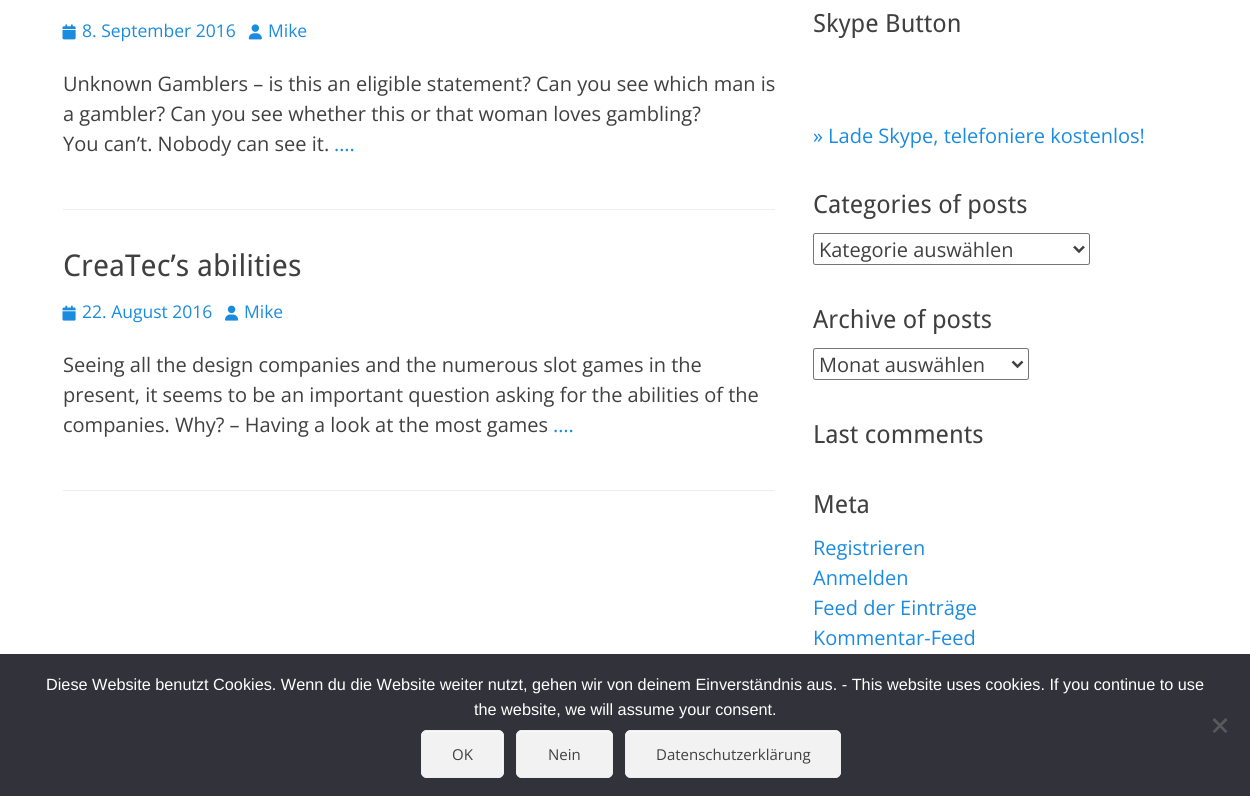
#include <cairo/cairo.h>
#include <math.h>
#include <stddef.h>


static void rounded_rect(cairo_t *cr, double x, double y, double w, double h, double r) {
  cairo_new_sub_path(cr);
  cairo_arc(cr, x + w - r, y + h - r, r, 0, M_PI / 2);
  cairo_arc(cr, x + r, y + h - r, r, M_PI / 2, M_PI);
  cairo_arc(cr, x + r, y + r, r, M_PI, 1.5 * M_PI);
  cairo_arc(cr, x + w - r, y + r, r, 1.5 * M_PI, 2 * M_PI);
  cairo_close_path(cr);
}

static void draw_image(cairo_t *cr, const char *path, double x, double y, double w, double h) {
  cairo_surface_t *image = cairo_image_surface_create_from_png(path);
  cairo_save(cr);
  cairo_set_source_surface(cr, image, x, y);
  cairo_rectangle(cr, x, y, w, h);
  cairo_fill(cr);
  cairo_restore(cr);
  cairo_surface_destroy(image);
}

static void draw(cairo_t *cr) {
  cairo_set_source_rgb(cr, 1, 1, 1);
  cairo_paint(cr);
  cairo_set_source_rgb(cr, 238 / 255.0, 238 / 255.0, 238 / 255.0);
  cairo_rectangle(cr, 63, 209, 712, 1);
  cairo_fill(cr);
  draw_image(cr, "images/1.png", 62, 24, 14, 16);
  draw_image(cr, "images/2.png", 248, 24, 14, 16);
  cairo_rectangle(cr, 63, 490, 712, 1);
  cairo_fill(cr);
  draw_image(cr, "images/3.png", 62, 305, 14, 16);
  draw_image(cr, "images/4.png", 225, 305, 14, 16);
  rounded_rect(cr, 813.5, 233.5, 276, 31, 2);
  cairo_set_source_rgb(cr, 118 / 255.0, 118 / 255.0, 118 / 255.0);
  cairo_set_line_width(cr, 1);
  cairo_stroke(cr);
  cairo_new_path(cr);
  cairo_move_to(cr, 1074, 246.5);
  cairo_line_to(cr, 1079, 251.5);
  cairo_line_to(cr, 1084, 246.5);
  cairo_set_source_rgb(cr, 64 / 255.0, 64 / 255.0, 64 / 255.0);
  cairo_set_line_width(cr, 2.5);
  cairo_stroke(cr);
  rounded_rect(cr, 813.5, 348.5, 215, 31, 2);
  cairo_set_source_rgb(cr, 118 / 255.0, 118 / 255.0, 118 / 255.0);
  cairo_set_line_width(cr, 1);
  cairo_stroke(cr);
  cairo_new_path(cr);
  cairo_move_to(cr, 1012.5, 361.5);
  cairo_line_to(cr, 1017.5, 366.5);
  cairo_line_to(cr, 1022.5, 361.5);
  cairo_set_source_rgb(cr, 64 / 255.0, 64 / 255.0, 64 / 255.0);
  cairo_set_line_width(cr, 2.5);
  cairo_stroke(cr);
  cairo_set_source_rgb(cr, 50 / 255.0, 50 / 255.0, 58 / 255.0);
  cairo_rectangle(cr, 0, 654, 1250, 142);
  cairo_fill(cr);
  cairo_set_source_rgb(cr, 89 / 255.0, 89 / 255.0, 93 / 255.0);
  cairo_new_path(cr);
  cairo_move_to(cr, 1225.5, 718);
  cairo_line_to(cr, 1227.5, 720);
  cairo_line_to(cr, 1214.5, 733);
  cairo_line_to(cr, 1212.5, 731.5);
  cairo_close_path(cr);
  cairo_fill(cr);
  cairo_new_path(cr);
  cairo_move_to(cr, 1212.5, 720);
  cairo_line_to(cr, 1214.5, 718);
  cairo_line_to(cr, 1227.5, 731.5);
  cairo_line_to(cr, 1225.5, 733);
  cairo_close_path(cr);
  cairo_fill(cr);
  cairo_set_source_rgb(cr, 242 / 255.0, 242 / 255.0, 242 / 255.0);
  rounded_rect(cr, 421, 730, 83, 48, 6);
  cairo_fill(cr);
  cairo_set_source_rgb(cr, 249 / 255.0, 249 / 255.0, 249 / 255.0);
  cairo_new_path(cr);
  cairo_move_to(cr, 428, 732);
  cairo_line_to(cr, 498, 732);
  cairo_curve_to(cr, 500, 732, 502, 735, 502, 738);
  cairo_line_to(cr, 502, 772);
  cairo_line_to(cr, 502, 775);
  cairo_curve_to(cr, 502, 774, 503, 772, 503, 771);
  cairo_line_to(cr, 503, 736);
  cairo_curve_to(cr, 503, 733, 501, 731, 498, 731);
  cairo_line_to(cr, 428, 731);
  cairo_curve_to(cr, 426, 731, 424, 733, 423, 735);
  cairo_curve_to(cr, 424, 733, 426, 732, 428, 732);
  cairo_close_path(cr);
  cairo_fill(cr);
  rounded_rect(cr, 421.5, 730.5, 82, 47, 5.5);
  cairo_set_source_rgb(cr, 238 / 255.0, 238 / 255.0, 238 / 255.0);
  cairo_set_line_width(cr, 1);
  cairo_stroke(cr);
  cairo_set_source_rgb(cr, 242 / 255.0, 242 / 255.0, 242 / 255.0);
  rounded_rect(cr, 516, 730, 97, 48, 6);
  cairo_fill(cr);
  cairo_set_source_rgb(cr, 249 / 255.0, 249 / 255.0, 249 / 255.0);
  cairo_new_path(cr);
  cairo_move_to(cr, 522, 732);
  cairo_line_to(cr, 606, 732);
  cairo_curve_to(cr, 609, 732, 611, 735, 611, 738);
  cairo_curve_to(cr, 611, 727, 601, 731, 592, 731);
  cairo_line_to(cr, 537, 731);
  cairo_curve_to(cr, 528, 731, 518, 727, 518, 738);
  cairo_curve_to(cr, 518, 735, 520, 732, 522, 732);
  cairo_close_path(cr);
  cairo_fill(cr);
  rounded_rect(cr, 516.5, 730.5, 96, 47, 5.5);
  cairo_set_source_rgb(cr, 238 / 255.0, 238 / 255.0, 238 / 255.0);
  cairo_stroke(cr);
  cairo_set_source_rgb(cr, 242 / 255.0, 242 / 255.0, 242 / 255.0);
  rounded_rect(cr, 625, 730, 216, 48, 6);
  cairo_fill(cr);
  cairo_set_source_rgb(cr, 249 / 255.0, 249 / 255.0, 249 / 255.0);
  cairo_new_path(cr);
  cairo_move_to(cr, 631, 732);
  cairo_line_to(cr, 835, 732);
  cairo_curve_to(cr, 838, 732, 840, 735, 840, 738);
  cairo_line_to(cr, 840, 736);
  cairo_curve_to(cr, 840, 733, 838, 731, 835, 731);
  cairo_line_to(cr, 631, 731);
  cairo_curve_to(cr, 628, 731, 626, 733, 626, 736);
  cairo_line_to(cr, 626, 738);
  cairo_curve_to(cr, 626, 735, 628, 732, 631, 732);
  cairo_close_path(cr);
  cairo_fill(cr);
  rounded_rect(cr, 625.5, 730.5, 215, 47, 5.5);
  cairo_set_source_rgb(cr, 238 / 255.0, 238 / 255.0, 238 / 255.0);
  cairo_stroke(cr);
  cairo_select_font_face(cr, "Open Sans", CAIRO_FONT_SLANT_NORMAL, CAIRO_FONT_WEIGHT_NORMAL);
  cairo_set_font_size(cr, 17.5);
  cairo_set_source_rgb(cr, 27 / 255.0, 139 / 255.0, 224 / 255.0);
  cairo_move_to(cr, 82, 37);
  cairo_show_text(cr, "8. September 2016");
  cairo_move_to(cr, 268, 37);
  cairo_show_text(cr, "Mike");
  cairo_set_font_size(cr, 20);
  cairo_set_source_rgb(cr, 64 / 255.0, 64 / 255.0, 64 / 255.0);
  cairo_move_to(cr, 63, 91);
  cairo_show_text(cr, "Unknown Gamblers – is this an eligible statement? Can you see which man is");
  cairo_move_to(cr, 63, 121);
  cairo_show_text(cr, "a gambler? Can you see whether this or that woman loves gambling?");
  cairo_move_to(cr, 63, 151);
  cairo_show_text(cr, "You can’t. Nobody can see it.");
  cairo_set_source_rgb(cr, 27 / 255.0, 139 / 255.0, 224 / 255.0);
  cairo_move_to(cr, 334, 151);
  cairo_show_text(cr, "….");
  cairo_select_font_face(cr, "Droid Sans", CAIRO_FONT_SLANT_NORMAL, CAIRO_FONT_WEIGHT_NORMAL);
  cairo_set_font_size(cr, 30);
  cairo_set_source_rgb(cr, 64 / 255.0, 64 / 255.0, 64 / 255.0);
  cairo_move_to(cr, 63, 276);
  cairo_show_text(cr, "CreaTec’s abilities");
  cairo_select_font_face(cr, "Open Sans", CAIRO_FONT_SLANT_NORMAL, CAIRO_FONT_WEIGHT_NORMAL);
  cairo_set_font_size(cr, 17.5);
  cairo_set_source_rgb(cr, 27 / 255.0, 139 / 255.0, 224 / 255.0);
  cairo_move_to(cr, 82, 318);
  cairo_show_text(cr, "22. August 2016");
  cairo_move_to(cr, 244, 318);
  cairo_show_text(cr, "Mike");
  cairo_set_font_size(cr, 20);
  cairo_set_source_rgb(cr, 64 / 255.0, 64 / 255.0, 64 / 255.0);
  cairo_move_to(cr, 63, 372);
  cairo_show_text(cr, "Seeing all the design companies and the numerous slot games in the");
  cairo_move_to(cr, 63, 402);
  cairo_show_text(cr, "present, it seems to be an important question asking for the abilities of the");
  cairo_move_to(cr, 63, 432);
  cairo_show_text(cr, "companies. Why? – Having a look at the most games");
  cairo_set_source_rgb(cr, 27 / 255.0, 139 / 255.0, 224 / 255.0);
  cairo_move_to(cr, 553, 432);
  cairo_show_text(cr, "….");
  cairo_select_font_face(cr, "Droid Sans", CAIRO_FONT_SLANT_NORMAL, CAIRO_FONT_WEIGHT_NORMAL);
  cairo_set_font_size(cr, 25);
  cairo_set_source_rgb(cr, 64 / 255.0, 64 / 255.0, 64 / 255.0);
  cairo_move_to(cr, 813, 32);
  cairo_show_text(cr, "Skype Button");
  cairo_select_font_face(cr, "Open Sans", CAIRO_FONT_SLANT_NORMAL, CAIRO_FONT_WEIGHT_NORMAL);
  cairo_set_font_size(cr, 20);
  cairo_set_source_rgb(cr, 27 / 255.0, 139 / 255.0, 224 / 255.0);
  cairo_move_to(cr, 813, 143);
  cairo_show_text(cr, "» Lade Skype, telefoniere kostenlos!");
  cairo_select_font_face(cr, "Droid Sans", CAIRO_FONT_SLANT_NORMAL, CAIRO_FONT_WEIGHT_NORMAL);
  cairo_set_font_size(cr, 25);
  cairo_set_source_rgb(cr, 64 / 255.0, 64 / 255.0, 64 / 255.0);
  cairo_move_to(cr, 813, 213);
  cairo_show_text(cr, "Categories of posts");
  cairo_select_font_face(cr, "Open Sans", CAIRO_FONT_SLANT_NORMAL, CAIRO_FONT_WEIGHT_NORMAL);
  cairo_set_font_size(cr, 20);
  cairo_move_to(cr, 819, 257);
  cairo_show_text(cr, "Kategorie auswählen");
  cairo_select_font_face(cr, "Droid Sans", CAIRO_FONT_SLANT_NORMAL, CAIRO_FONT_WEIGHT_NORMAL);
  cairo_set_font_size(cr, 25);
  cairo_move_to(cr, 813, 328);
  cairo_show_text(cr, "Archive of posts");
  cairo_select_font_face(cr, "Open Sans", CAIRO_FONT_SLANT_NORMAL, CAIRO_FONT_WEIGHT_NORMAL);
  cairo_set_font_size(cr, 20);
  cairo_move_to(cr, 819, 372);
  cairo_show_text(cr, "Monat auswählen");
  cairo_select_font_face(cr, "Droid Sans", CAIRO_FONT_SLANT_NORMAL, CAIRO_FONT_WEIGHT_NORMAL);
  cairo_set_font_size(cr, 25);
  cairo_move_to(cr, 813, 443);
  cairo_show_text(cr, "Last comments");
  cairo_move_to(cr, 813, 513);
  cairo_show_text(cr, "Meta");
  cairo_select_font_face(cr, "Open Sans", CAIRO_FONT_SLANT_NORMAL, CAIRO_FONT_WEIGHT_NORMAL);
  cairo_set_font_size(cr, 20);
  cairo_set_source_rgb(cr, 27 / 255.0, 139 / 255.0, 224 / 255.0);
  cairo_move_to(cr, 813, 555);
  cairo_show_text(cr, "Registrieren");
  cairo_move_to(cr, 813, 585);
  cairo_show_text(cr, "Anmelden");
  cairo_move_to(cr, 813, 615);
  cairo_show_text(cr, "Feed der Einträge");
  cairo_move_to(cr, 813, 645);
  cairo_show_text(cr, "Kommentar-Feed");
  cairo_select_font_face(cr, "Liberation Sans", CAIRO_FONT_SLANT_NORMAL, CAIRO_FONT_WEIGHT_NORMAL);
  cairo_set_font_size(cr, 16.25);
  cairo_set_source_rgb(cr, 1, 1, 1);
  cairo_move_to(cr, 46, 690);
  cairo_show_text(cr, "Diese Website benutzt Cookies. Wenn du die Website weiter nutzt, gehen wir von deinem Einverständnis aus. - This website uses cookies. If you continue to use");
  cairo_move_to(cr, 474, 715);
  cairo_show_text(cr, "the website, we will assume your consent.");
  cairo_select_font_face(cr, "Open Sans", CAIRO_FONT_SLANT_NORMAL, CAIRO_FONT_WEIGHT_NORMAL);
  cairo_set_font_size(cr, 15);
  cairo_set_source_rgb(cr, 64 / 255.0, 64 / 255.0, 64 / 255.0);
  cairo_move_to(cr, 452, 760);
  cairo_show_text(cr, "OK");
  cairo_move_to(cr, 548, 760);
  cairo_show_text(cr, "Nein");
  cairo_move_to(cr, 656, 760);
  cairo_show_text(cr, "Datenschutzerklärung");
}

int main(void) {
  cairo_surface_t *surface = cairo_image_surface_create(CAIRO_FORMAT_RGB24, 1250, 796);
  cairo_t *cr = cairo_create(surface);
  cairo_font_options_t *options = cairo_font_options_create();
  cairo_font_options_set_hint_metrics(options, CAIRO_HINT_METRICS_OFF);
  cairo_font_options_set_hint_style(options, CAIRO_HINT_STYLE_NONE);
  cairo_set_font_options(cr, options);
  cairo_set_miter_limit(cr, 4);
  draw(cr);
  cairo_surface_write_to_png(surface, "out.png");
  cairo_font_options_destroy(options);
  cairo_destroy(cr);
  cairo_surface_destroy(surface);
  return 0;
}
